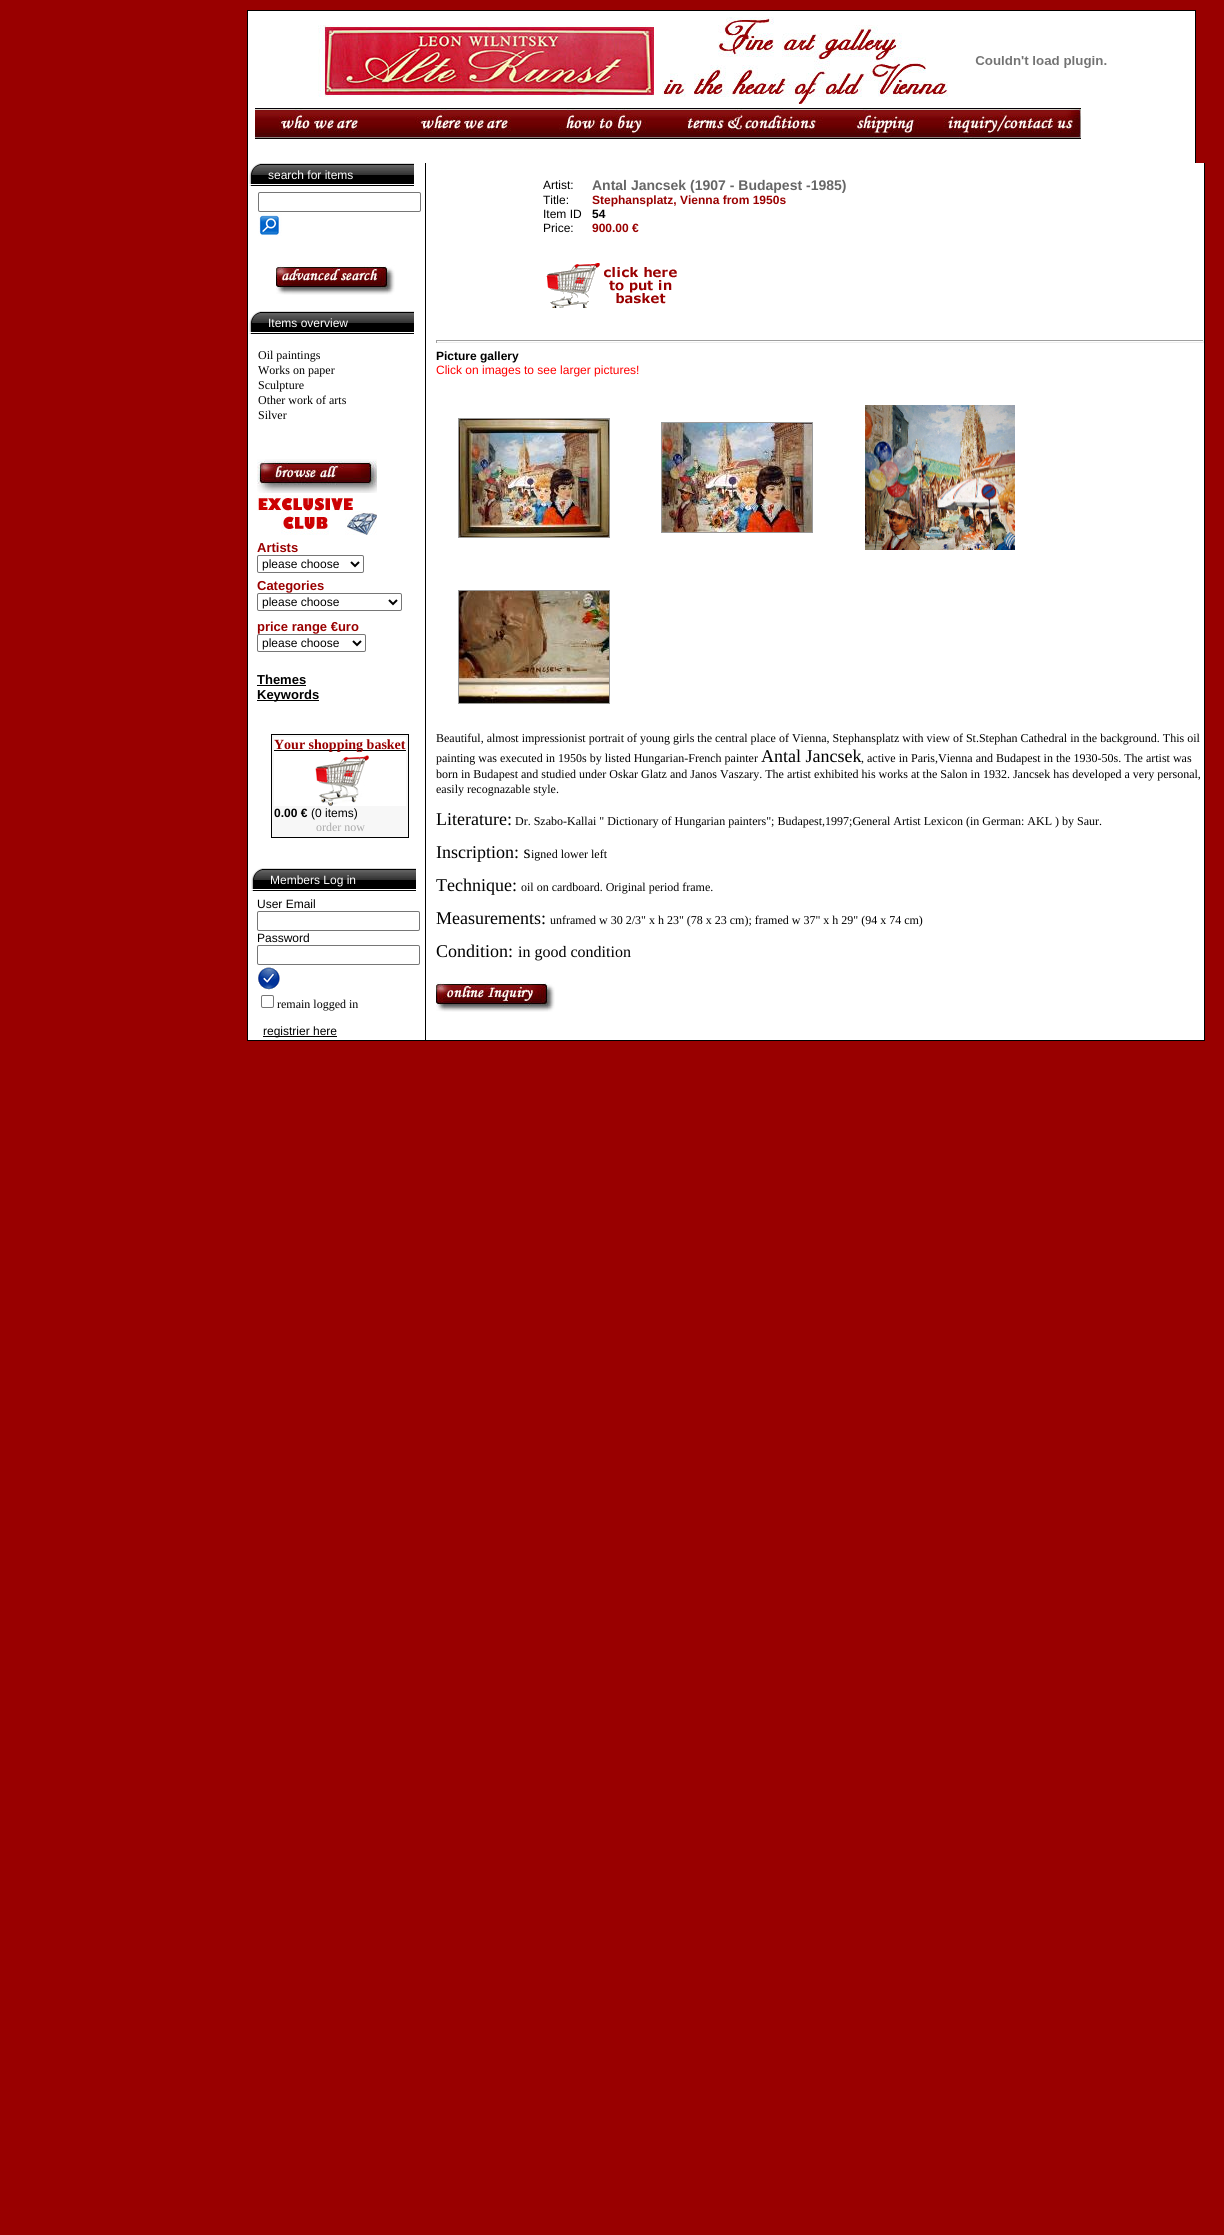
#include <cairo/cairo.h>
#include <math.h>
#include <stddef.h>


static void rounded_rect(cairo_t *cr, double x, double y, double w, double h, double r) {
  cairo_new_sub_path(cr);
  cairo_arc(cr, x + w - r, y + h - r, r, 0, M_PI / 2);
  cairo_arc(cr, x + r, y + h - r, r, M_PI / 2, M_PI);
  cairo_arc(cr, x + r, y + r, r, M_PI, 1.5 * M_PI);
  cairo_arc(cr, x + w - r, y + r, r, 1.5 * M_PI, 2 * M_PI);
  cairo_close_path(cr);
}

static void draw_image(cairo_t *cr, const char *path, double x, double y, double w, double h) {
  cairo_surface_t *image = cairo_image_surface_create_from_png(path);
  cairo_save(cr);
  cairo_set_source_surface(cr, image, x, y);
  cairo_rectangle(cr, x, y, w, h);
  cairo_fill(cr);
  cairo_restore(cr);
  cairo_surface_destroy(image);
}

static void draw(cairo_t *cr) {
  cairo_set_source_rgb(cr, 153 / 255.0, 0, 0);
  cairo_paint(cr);
  cairo_set_source_rgb(cr, 1, 1, 1);
  cairo_rectangle(cr, 248, 11, 947, 152);
  cairo_fill(cr);
  cairo_set_source_rgb(cr, 0, 0, 0);
  cairo_rectangle(cr, 247, 10, 949, 1);
  cairo_fill(cr);
  cairo_rectangle(cr, 1195, 10, 1, 153);
  cairo_fill(cr);
  cairo_rectangle(cr, 247, 10, 1, 153);
  cairo_fill(cr);
  draw_image(cr, "images/1.png", 318, 17, 630, 87);
  draw_image(cr, "images/2.png", 975, 56, 132, 12);
  draw_image(cr, "images/3.png", 255, 108, 826, 31);
  cairo_set_source_rgb(cr, 1, 1, 1);
  cairo_rectangle(cr, 248, 163, 177, 877);
  cairo_fill(cr);
  cairo_set_source_rgb(cr, 0, 0, 0);
  cairo_rectangle(cr, 425, 163, 1, 878);
  cairo_fill(cr);
  cairo_rectangle(cr, 247, 1040, 179, 1);
  cairo_fill(cr);
  cairo_rectangle(cr, 247, 163, 1, 878);
  cairo_fill(cr);
  draw_image(cr, "images/4.png", 249, 163, 165, 23);
  rounded_rect(cr, 258.5, 192.5, 162, 19, 1.5);
  cairo_set_source_rgb(cr, 118 / 255.0, 118 / 255.0, 118 / 255.0);
  cairo_set_line_width(cr, 1);
  cairo_stroke(cr);
  draw_image(cr, "images/5.png", 258, 213, 24, 23);
  draw_image(cr, "images/6.png", 276, 265, 119, 30);
  draw_image(cr, "images/4.png", 249, 311, 165, 23);
  draw_image(cr, "images/7.png", 257, 459, 120, 34);
  draw_image(cr, "images/8.png", 257, 495, 120, 40);
  rounded_rect(cr, 257.5, 555.5, 106, 17, 1.5);
  cairo_stroke(cr);
  cairo_new_path(cr);
  cairo_move_to(cr, 351, 562);
  cairo_line_to(cr, 355, 566);
  cairo_line_to(cr, 359, 562);
  cairo_set_source_rgb(cr, 0, 0, 0);
  cairo_set_line_width(cr, 2);
  cairo_stroke(cr);
  rounded_rect(cr, 257.5, 593.5, 144, 17, 1.5);
  cairo_set_source_rgb(cr, 118 / 255.0, 118 / 255.0, 118 / 255.0);
  cairo_set_line_width(cr, 1);
  cairo_stroke(cr);
  cairo_new_path(cr);
  cairo_move_to(cr, 389, 600);
  cairo_line_to(cr, 393, 604);
  cairo_line_to(cr, 397, 600);
  cairo_set_source_rgb(cr, 0, 0, 0);
  cairo_set_line_width(cr, 2);
  cairo_stroke(cr);
  rounded_rect(cr, 257.5, 634.5, 108, 17, 1.5);
  cairo_set_source_rgb(cr, 118 / 255.0, 118 / 255.0, 118 / 255.0);
  cairo_set_line_width(cr, 1);
  cairo_stroke(cr);
  cairo_new_path(cr);
  cairo_move_to(cr, 353, 641);
  cairo_line_to(cr, 357, 645);
  cairo_line_to(cr, 361, 641);
  cairo_set_source_rgb(cr, 0, 0, 0);
  cairo_set_line_width(cr, 2);
  cairo_stroke(cr);
  cairo_rectangle(cr, 257, 685, 49, 1);
  cairo_fill(cr);
  cairo_rectangle(cr, 257, 700, 62, 1);
  cairo_fill(cr);
  cairo_set_source_rgb(cr, 247 / 255.0, 247 / 255.0, 247 / 255.0);
  cairo_rectangle(cr, 271.5, 734.5, 137, 103);
  cairo_fill_preserve(cr);
  cairo_set_source_rgb(cr, 0, 0, 0);
  cairo_set_line_width(cr, 1);
  cairo_stroke(cr);
  cairo_set_source_rgb(cr, 1, 1, 1);
  cairo_rectangle(cr, 274, 737, 132, 69);
  cairo_fill(cr);
  cairo_set_source_rgb(cr, 0, 0, 0);
  cairo_rectangle(cr, 274, 750, 132, 1);
  cairo_fill(cr);
  draw_image(cr, "images/9.png", 315, 755, 54, 51);
  draw_image(cr, "images/4.png", 251, 868, 165, 23);
  rounded_rect(cr, 257.5, 911.5, 162, 19, 1.5);
  cairo_set_source_rgb(cr, 118 / 255.0, 118 / 255.0, 118 / 255.0);
  cairo_stroke(cr);
  rounded_rect(cr, 257.5, 945.5, 162, 19, 1.5);
  cairo_stroke(cr);
  draw_image(cr, "images/10.png", 258, 967, 22, 23);
  rounded_rect(cr, 261.5, 995.5, 12, 12, 1.5);
  cairo_stroke(cr);
  cairo_set_source_rgb(cr, 0, 0, 0);
  cairo_rectangle(cr, 263, 1036, 74, 1);
  cairo_fill(cr);
  cairo_set_source_rgb(cr, 1, 1, 1);
  cairo_rectangle(cr, 426, 163, 778, 877);
  cairo_fill(cr);
  cairo_set_source_rgb(cr, 0, 0, 0);
  cairo_rectangle(cr, 1204, 163, 1, 878);
  cairo_fill(cr);
  cairo_rectangle(cr, 426, 1040, 779, 1);
  cairo_fill(cr);
  draw_image(cr, "images/11.png", 546, 263, 131, 45);
  cairo_set_source_rgb(cr, 159 / 255.0, 159 / 255.0, 159 / 255.0);
  cairo_rectangle(cr, 436, 340, 768, 1);
  cairo_fill(cr);
  cairo_set_source_rgb(cr, 238 / 255.0, 238 / 255.0, 238 / 255.0);
  cairo_rectangle(cr, 1203, 340, 1, 3);
  cairo_fill(cr);
  cairo_rectangle(cr, 436, 342, 768, 1);
  cairo_fill(cr);
  cairo_set_source_rgb(cr, 159 / 255.0, 159 / 255.0, 159 / 255.0);
  cairo_rectangle(cr, 436, 340, 1, 3);
  cairo_fill(cr);
  cairo_rectangle(cr, 458.5, 418.5, 151, 119);
  cairo_set_source_rgb(cr, 153 / 255.0, 153 / 255.0, 153 / 255.0);
  cairo_stroke(cr);
  draw_image(cr, "images/12.png", 459, 419, 150, 118);
  cairo_rectangle(cr, 661.5, 422.5, 151, 110);
  cairo_stroke(cr);
  draw_image(cr, "images/13.png", 662, 423, 150, 109);
  draw_image(cr, "images/14.png", 865, 405, 150, 145);
  cairo_rectangle(cr, 458.5, 590.5, 151, 113);
  cairo_stroke(cr);
  draw_image(cr, "images/15.png", 459, 591, 150, 112);
  draw_image(cr, "images/16.png", 436, 982, 119, 30);
  cairo_select_font_face(cr, "Liberation Sans", CAIRO_FONT_SLANT_NORMAL, CAIRO_FONT_WEIGHT_NORMAL);
  cairo_set_font_size(cr, 12);
  cairo_set_source_rgb(cr, 1, 1, 1);
  cairo_move_to(cr, 268, 179);
  cairo_show_text(cr, "search for items");
  cairo_move_to(cr, 268, 327);
  cairo_show_text(cr, "Items overview");
  cairo_select_font_face(cr, "Liberation Serif", CAIRO_FONT_SLANT_NORMAL, CAIRO_FONT_WEIGHT_NORMAL);
  cairo_set_source_rgb(cr, 0, 0, 0);
  cairo_move_to(cr, 258, 359);
  cairo_show_text(cr, "Oil paintings");
  cairo_move_to(cr, 258, 374);
  cairo_show_text(cr, "Works on paper");
  cairo_move_to(cr, 258, 389);
  cairo_show_text(cr, "Sculpture");
  cairo_move_to(cr, 258, 404);
  cairo_show_text(cr, "Other work of arts");
  cairo_move_to(cr, 258, 419);
  cairo_show_text(cr, "Silver");
  cairo_select_font_face(cr, "Liberation Sans", CAIRO_FONT_SLANT_NORMAL, CAIRO_FONT_WEIGHT_BOLD);
  cairo_set_font_size(cr, 13);
  cairo_set_source_rgb(cr, 153 / 255.0, 0, 0);
  cairo_move_to(cr, 257, 552);
  cairo_show_text(cr, "Artists");
  cairo_select_font_face(cr, "Liberation Sans", CAIRO_FONT_SLANT_NORMAL, CAIRO_FONT_WEIGHT_NORMAL);
  cairo_set_font_size(cr, 12);
  cairo_set_source_rgb(cr, 0, 0, 0);
  cairo_move_to(cr, 262, 568);
  cairo_show_text(cr, "please choose");
  cairo_select_font_face(cr, "Liberation Sans", CAIRO_FONT_SLANT_NORMAL, CAIRO_FONT_WEIGHT_BOLD);
  cairo_set_font_size(cr, 13);
  cairo_set_source_rgb(cr, 153 / 255.0, 0, 0);
  cairo_move_to(cr, 257, 590);
  cairo_show_text(cr, "Categories");
  cairo_select_font_face(cr, "Liberation Sans", CAIRO_FONT_SLANT_NORMAL, CAIRO_FONT_WEIGHT_NORMAL);
  cairo_set_font_size(cr, 12);
  cairo_set_source_rgb(cr, 0, 0, 0);
  cairo_move_to(cr, 262, 606);
  cairo_show_text(cr, "please choose");
  cairo_select_font_face(cr, "Liberation Sans", CAIRO_FONT_SLANT_NORMAL, CAIRO_FONT_WEIGHT_BOLD);
  cairo_set_font_size(cr, 13);
  cairo_set_source_rgb(cr, 153 / 255.0, 0, 0);
  cairo_move_to(cr, 257, 631);
  cairo_show_text(cr, "price range €uro");
  cairo_select_font_face(cr, "Liberation Sans", CAIRO_FONT_SLANT_NORMAL, CAIRO_FONT_WEIGHT_NORMAL);
  cairo_set_font_size(cr, 12);
  cairo_set_source_rgb(cr, 0, 0, 0);
  cairo_move_to(cr, 262, 647);
  cairo_show_text(cr, "please choose");
  cairo_select_font_face(cr, "Liberation Sans", CAIRO_FONT_SLANT_NORMAL, CAIRO_FONT_WEIGHT_BOLD);
  cairo_set_font_size(cr, 13);
  cairo_move_to(cr, 257, 684);
  cairo_show_text(cr, "Themes");
  cairo_move_to(cr, 257, 699);
  cairo_show_text(cr, "Keywords");
  cairo_select_font_face(cr, "Liberation Serif", CAIRO_FONT_SLANT_NORMAL, CAIRO_FONT_WEIGHT_BOLD);
  cairo_set_font_size(cr, 14);
  cairo_set_source_rgb(cr, 153 / 255.0, 0, 0);
  cairo_move_to(cr, 274, 749);
  cairo_show_text(cr, "Your shopping basket");
  cairo_select_font_face(cr, "Liberation Sans", CAIRO_FONT_SLANT_NORMAL, CAIRO_FONT_WEIGHT_BOLD);
  cairo_set_font_size(cr, 12);
  cairo_set_source_rgb(cr, 0, 0, 0);
  cairo_move_to(cr, 274, 817);
  cairo_show_text(cr, "0.00 €");
  cairo_select_font_face(cr, "Liberation Sans", CAIRO_FONT_SLANT_NORMAL, CAIRO_FONT_WEIGHT_NORMAL);
  cairo_move_to(cr, 311, 817);
  cairo_show_text(cr, "(0 items)");
  cairo_select_font_face(cr, "Liberation Serif", CAIRO_FONT_SLANT_NORMAL, CAIRO_FONT_WEIGHT_NORMAL);
  cairo_set_source_rgb(cr, 170 / 255.0, 170 / 255.0, 170 / 255.0);
  cairo_move_to(cr, 316, 831);
  cairo_show_text(cr, "order now");
  cairo_select_font_face(cr, "Liberation Sans", CAIRO_FONT_SLANT_NORMAL, CAIRO_FONT_WEIGHT_NORMAL);
  cairo_set_source_rgb(cr, 1, 1, 1);
  cairo_move_to(cr, 270, 884);
  cairo_show_text(cr, "Members Log in");
  cairo_set_source_rgb(cr, 0, 0, 0);
  cairo_move_to(cr, 257, 908);
  cairo_show_text(cr, "User Email");
  cairo_move_to(cr, 257, 942);
  cairo_show_text(cr, "Password");
  cairo_select_font_face(cr, "Liberation Serif", CAIRO_FONT_SLANT_NORMAL, CAIRO_FONT_WEIGHT_NORMAL);
  cairo_move_to(cr, 277, 1008);
  cairo_show_text(cr, "remain logged in");
  cairo_select_font_face(cr, "Liberation Sans", CAIRO_FONT_SLANT_NORMAL, CAIRO_FONT_WEIGHT_NORMAL);
  cairo_move_to(cr, 263, 1035);
  cairo_show_text(cr, "registrier here");
  cairo_move_to(cr, 543, 189);
  cairo_show_text(cr, "Artist:");
  cairo_select_font_face(cr, "Liberation Sans", CAIRO_FONT_SLANT_NORMAL, CAIRO_FONT_WEIGHT_BOLD);
  cairo_set_font_size(cr, 14);
  cairo_set_source_rgb(cr, 102 / 255.0, 102 / 255.0, 102 / 255.0);
  cairo_move_to(cr, 592, 190);
  cairo_show_text(cr, "Antal Jancsek (1907 - Budapest -1985)");
  cairo_select_font_face(cr, "Liberation Sans", CAIRO_FONT_SLANT_NORMAL, CAIRO_FONT_WEIGHT_NORMAL);
  cairo_set_font_size(cr, 12);
  cairo_set_source_rgb(cr, 0, 0, 0);
  cairo_move_to(cr, 543, 204);
  cairo_show_text(cr, "Title:");
  cairo_select_font_face(cr, "Liberation Sans", CAIRO_FONT_SLANT_NORMAL, CAIRO_FONT_WEIGHT_BOLD);
  cairo_set_source_rgb(cr, 153 / 255.0, 0, 0);
  cairo_move_to(cr, 592, 204);
  cairo_show_text(cr, "Stephansplatz, Vienna from 1950s");
  cairo_select_font_face(cr, "Liberation Sans", CAIRO_FONT_SLANT_NORMAL, CAIRO_FONT_WEIGHT_NORMAL);
  cairo_set_source_rgb(cr, 0, 0, 0);
  cairo_move_to(cr, 543, 218);
  cairo_show_text(cr, "Item ID");
  cairo_select_font_face(cr, "Liberation Sans", CAIRO_FONT_SLANT_NORMAL, CAIRO_FONT_WEIGHT_BOLD);
  cairo_move_to(cr, 592, 218);
  cairo_show_text(cr, "54");
  cairo_select_font_face(cr, "Liberation Sans", CAIRO_FONT_SLANT_NORMAL, CAIRO_FONT_WEIGHT_NORMAL);
  cairo_move_to(cr, 543, 232);
  cairo_show_text(cr, "Price:");
  cairo_select_font_face(cr, "Liberation Sans", CAIRO_FONT_SLANT_NORMAL, CAIRO_FONT_WEIGHT_BOLD);
  cairo_set_source_rgb(cr, 153 / 255.0, 0, 0);
  cairo_move_to(cr, 592, 232);
  cairo_show_text(cr, "900.00 €");
  cairo_set_source_rgb(cr, 0, 0, 0);
  cairo_move_to(cr, 436, 360);
  cairo_show_text(cr, "Picture gallery");
  cairo_select_font_face(cr, "Liberation Sans", CAIRO_FONT_SLANT_NORMAL, CAIRO_FONT_WEIGHT_NORMAL);
  cairo_set_source_rgb(cr, 1, 0, 0);
  cairo_move_to(cr, 436, 374);
  cairo_show_text(cr, "Click on images to see larger pictures!");
  cairo_select_font_face(cr, "Liberation Serif", CAIRO_FONT_SLANT_NORMAL, CAIRO_FONT_WEIGHT_NORMAL);
  cairo_set_source_rgb(cr, 0, 0, 0);
  cairo_move_to(cr, 436, 742);
  cairo_show_text(cr, "Beautiful, almost impressionist portrait of young girls the central place of Vienna, Stephansplatz with view of St.Stephan Cathedral in the background. This oil");
  cairo_move_to(cr, 436, 762);
  cairo_show_text(cr, "painting was executed in 1950s by listed Hungarian-French painter");
  cairo_set_font_size(cr, 18);
  cairo_move_to(cr, 761, 762);
  cairo_show_text(cr, "Antal Jancsek");
  cairo_set_font_size(cr, 12);
  cairo_move_to(cr, 861, 762);
  cairo_show_text(cr, ", active in Paris,Vienna and Budapest in the 1930-50s. The artist was");
  cairo_move_to(cr, 436, 778);
  cairo_show_text(cr, "born in Budapest and studied under Oskar Glatz and Janos Vaszary. The artist exhibited his works at the Salon in 1932. Jancsek has developed a very personal,");
  cairo_move_to(cr, 436, 793);
  cairo_show_text(cr, "easily recognazable style.");
  cairo_set_font_size(cr, 18);
  cairo_move_to(cr, 436, 825);
  cairo_show_text(cr, "Literature:");
  cairo_set_font_size(cr, 12);
  cairo_move_to(cr, 515, 825);
  cairo_show_text(cr, "Dr. Szabo-Kallai \" Dictionary of Hungarian painters\"; Budapest,1997;General Artist Lexicon (in German: AKL ) by Saur.");
  cairo_set_font_size(cr, 18);
  cairo_move_to(cr, 436, 858);
  cairo_show_text(cr, "Inscription: s");
  cairo_set_font_size(cr, 12);
  cairo_move_to(cr, 531, 858);
  cairo_show_text(cr, "igned lower left");
  cairo_set_font_size(cr, 18);
  cairo_move_to(cr, 436, 891);
  cairo_show_text(cr, "Technique:");
  cairo_set_font_size(cr, 12);
  cairo_move_to(cr, 521, 891);
  cairo_show_text(cr, "oil on cardboard. Original period frame.");
  cairo_set_font_size(cr, 18);
  cairo_move_to(cr, 436, 924);
  cairo_show_text(cr, "Measurements:");
  cairo_set_font_size(cr, 12);
  cairo_move_to(cr, 550, 924);
  cairo_show_text(cr, "unframed w 30 2/3\" x h 23\" (78 x 23 cm); framed w 37\" x h 29\" (94 x 74 cm)");
  cairo_set_font_size(cr, 18);
  cairo_move_to(cr, 436, 957);
  cairo_show_text(cr, "Condition:");
  cairo_set_font_size(cr, 16);
  cairo_move_to(cr, 518, 957);
  cairo_show_text(cr, "in good condition");
}

int main(void) {
  cairo_surface_t *surface = cairo_image_surface_create(CAIRO_FORMAT_RGB24, 1224, 2235);
  cairo_t *cr = cairo_create(surface);
  cairo_font_options_t *options = cairo_font_options_create();
  cairo_font_options_set_hint_metrics(options, CAIRO_HINT_METRICS_OFF);
  cairo_font_options_set_hint_style(options, CAIRO_HINT_STYLE_NONE);
  cairo_set_font_options(cr, options);
  cairo_set_miter_limit(cr, 4);
  draw(cr);
  cairo_surface_write_to_png(surface, "out.png");
  cairo_font_options_destroy(options);
  cairo_destroy(cr);
  cairo_surface_destroy(surface);
  return 0;
}
